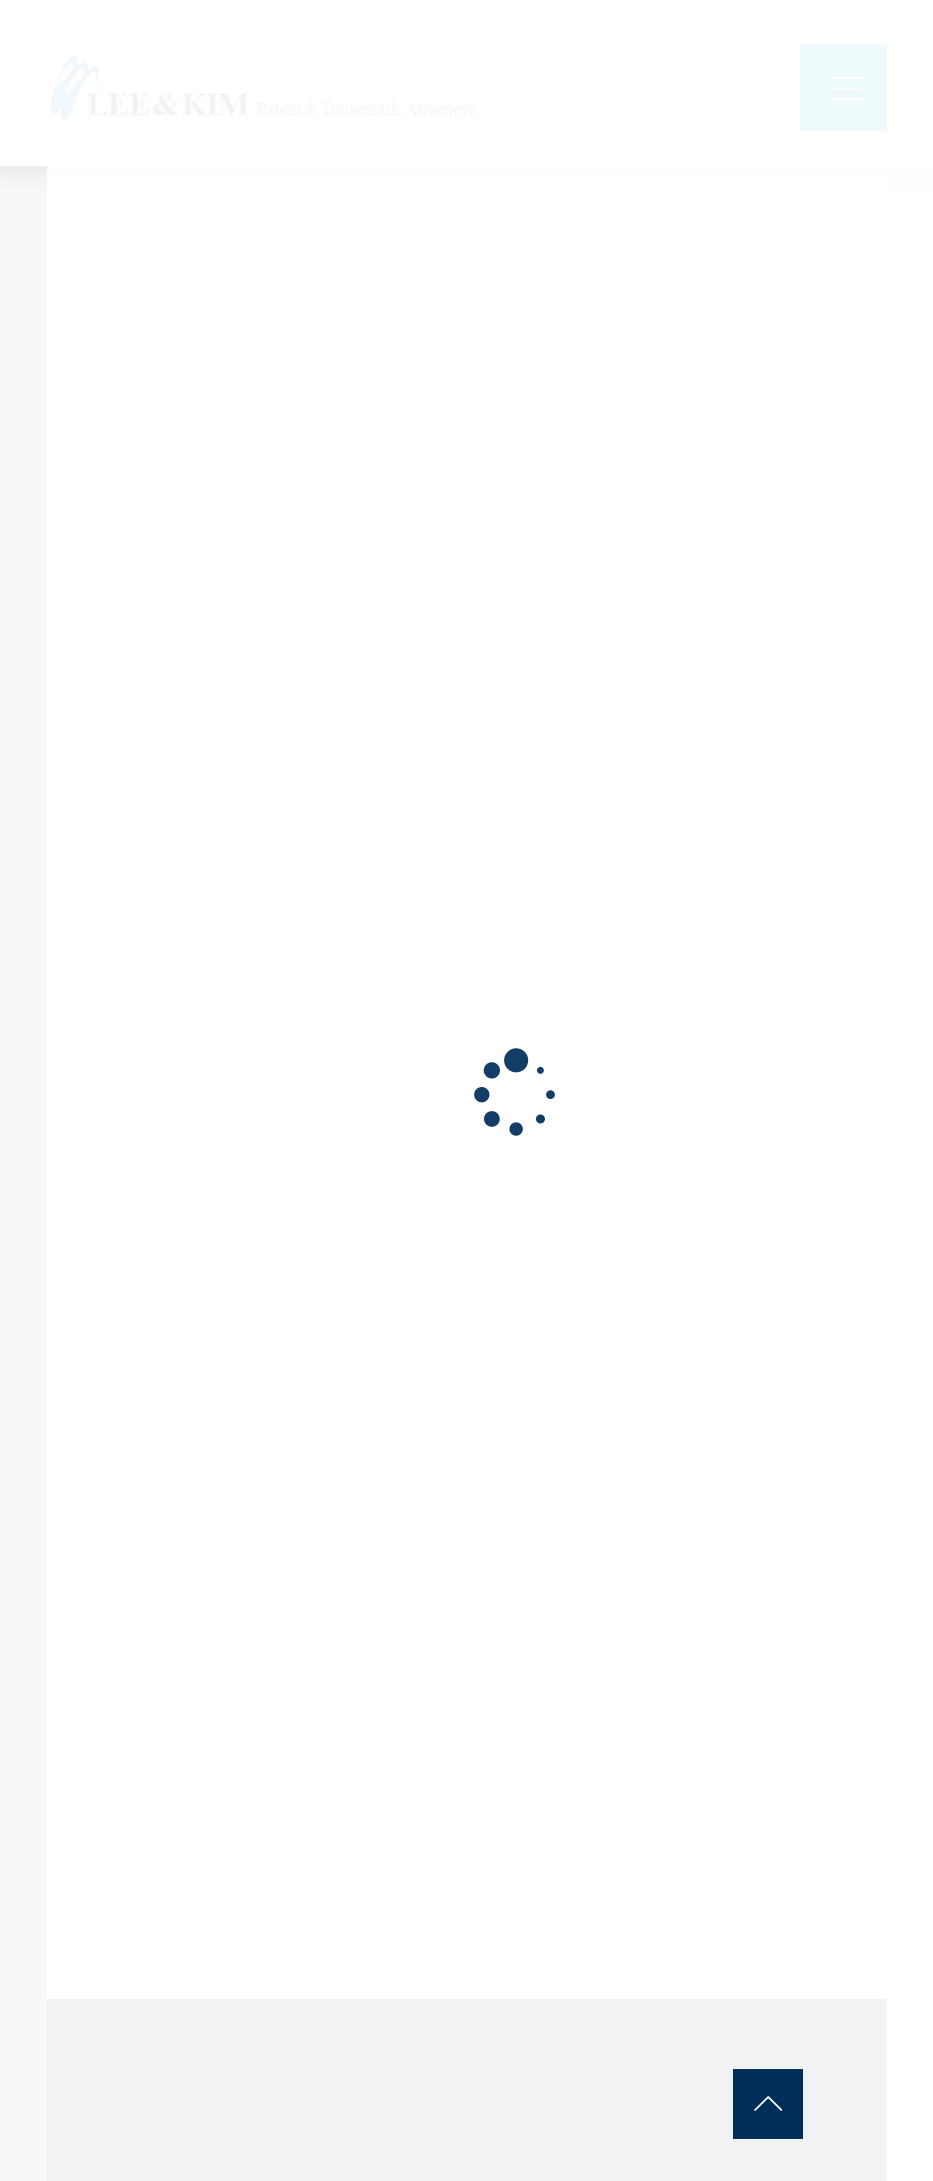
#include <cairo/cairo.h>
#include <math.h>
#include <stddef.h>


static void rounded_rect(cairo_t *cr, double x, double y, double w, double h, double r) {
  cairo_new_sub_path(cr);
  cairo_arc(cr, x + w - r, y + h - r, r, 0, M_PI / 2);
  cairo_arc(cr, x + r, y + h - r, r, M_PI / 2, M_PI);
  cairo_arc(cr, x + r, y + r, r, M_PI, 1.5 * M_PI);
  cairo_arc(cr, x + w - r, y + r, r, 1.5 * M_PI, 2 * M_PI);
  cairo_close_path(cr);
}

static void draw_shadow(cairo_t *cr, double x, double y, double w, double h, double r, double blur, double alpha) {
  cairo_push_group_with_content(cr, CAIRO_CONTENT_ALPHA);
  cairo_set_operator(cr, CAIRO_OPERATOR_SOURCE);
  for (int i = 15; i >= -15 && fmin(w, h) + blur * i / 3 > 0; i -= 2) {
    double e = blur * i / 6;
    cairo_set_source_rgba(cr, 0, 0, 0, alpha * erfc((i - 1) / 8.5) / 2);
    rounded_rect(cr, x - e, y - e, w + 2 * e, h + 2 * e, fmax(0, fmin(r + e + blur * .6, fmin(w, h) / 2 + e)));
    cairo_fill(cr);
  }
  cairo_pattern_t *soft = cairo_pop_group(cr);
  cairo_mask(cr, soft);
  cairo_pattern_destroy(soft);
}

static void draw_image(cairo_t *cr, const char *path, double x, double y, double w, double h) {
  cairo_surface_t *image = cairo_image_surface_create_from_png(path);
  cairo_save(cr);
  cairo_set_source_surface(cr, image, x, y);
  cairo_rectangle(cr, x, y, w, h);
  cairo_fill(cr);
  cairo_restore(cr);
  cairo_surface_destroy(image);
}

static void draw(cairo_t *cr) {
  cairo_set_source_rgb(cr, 248 / 255.0, 248 / 255.0, 248 / 255.0);
  cairo_paint(cr);
  cairo_set_source_rgb(cr, 1, 1, 1);
  cairo_rectangle(cr, 47, 166, 840, 1833);
  cairo_fill(cr);
  cairo_set_source_rgb(cr, 0, 0, 0);
  draw_shadow(cr, 0, 2, 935, 166, 0, 13, 0.1);
  cairo_set_source_rgb(cr, 1, 1, 1);
  cairo_rectangle(cr, 0, 0, 933, 166);
  cairo_fill(cr);
  draw_image(cr, "images/1.png", 49, 55, 428, 66);
  cairo_set_source_rgb(cr, 17 / 255.0, 181 / 255.0, 230 / 255.0);
  cairo_rectangle(cr, 800, 44, 87, 87);
  cairo_fill(cr);
  cairo_set_source_rgb(cr, 1, 1, 1);
  cairo_rectangle(cr, 828, 77, 35, 2);
  cairo_fill(cr);
  cairo_rectangle(cr, 828, 88, 35, 1);
  cairo_fill(cr);
  cairo_rectangle(cr, 828, 98, 35, 2);
  cairo_fill(cr);
  cairo_set_source_rgb(cr, 44 / 255.0, 57 / 255.0, 76 / 255.0);
  cairo_rectangle(cr, 47, 2001, 840, 180);
  cairo_fill(cr);
  cairo_set_source_rgb(cr, 65 / 255.0, 77 / 255.0, 94 / 255.0);
  cairo_rectangle(cr, 47, 1999, 840, 2);
  cairo_fill(cr);
  cairo_set_source_rgba(cr, 1, 1, 1, 0.93);
  cairo_rectangle(cr, 47, 44, 886, 2137);
  cairo_fill(cr);
  draw_image(cr, "images/2.png", 474, 1048, 81, 88);
  cairo_set_source_rgb(cr, 0, 46 / 255.0, 91 / 255.0);
  cairo_rectangle(cr, 733, 2069, 70, 70);
  cairo_fill(cr);
  draw_image(cr, "images/3.png", 754, 2096, 28, 15);
}

int main(void) {
  cairo_surface_t *surface = cairo_image_surface_create(CAIRO_FORMAT_RGB24, 933, 2181);
  cairo_t *cr = cairo_create(surface);
  cairo_font_options_t *options = cairo_font_options_create();
  cairo_font_options_set_hint_metrics(options, CAIRO_HINT_METRICS_OFF);
  cairo_font_options_set_hint_style(options, CAIRO_HINT_STYLE_NONE);
  cairo_set_font_options(cr, options);
  cairo_set_miter_limit(cr, 4);
  draw(cr);
  cairo_surface_write_to_png(surface, "out.png");
  cairo_font_options_destroy(options);
  cairo_destroy(cr);
  cairo_surface_destroy(surface);
  return 0;
}
